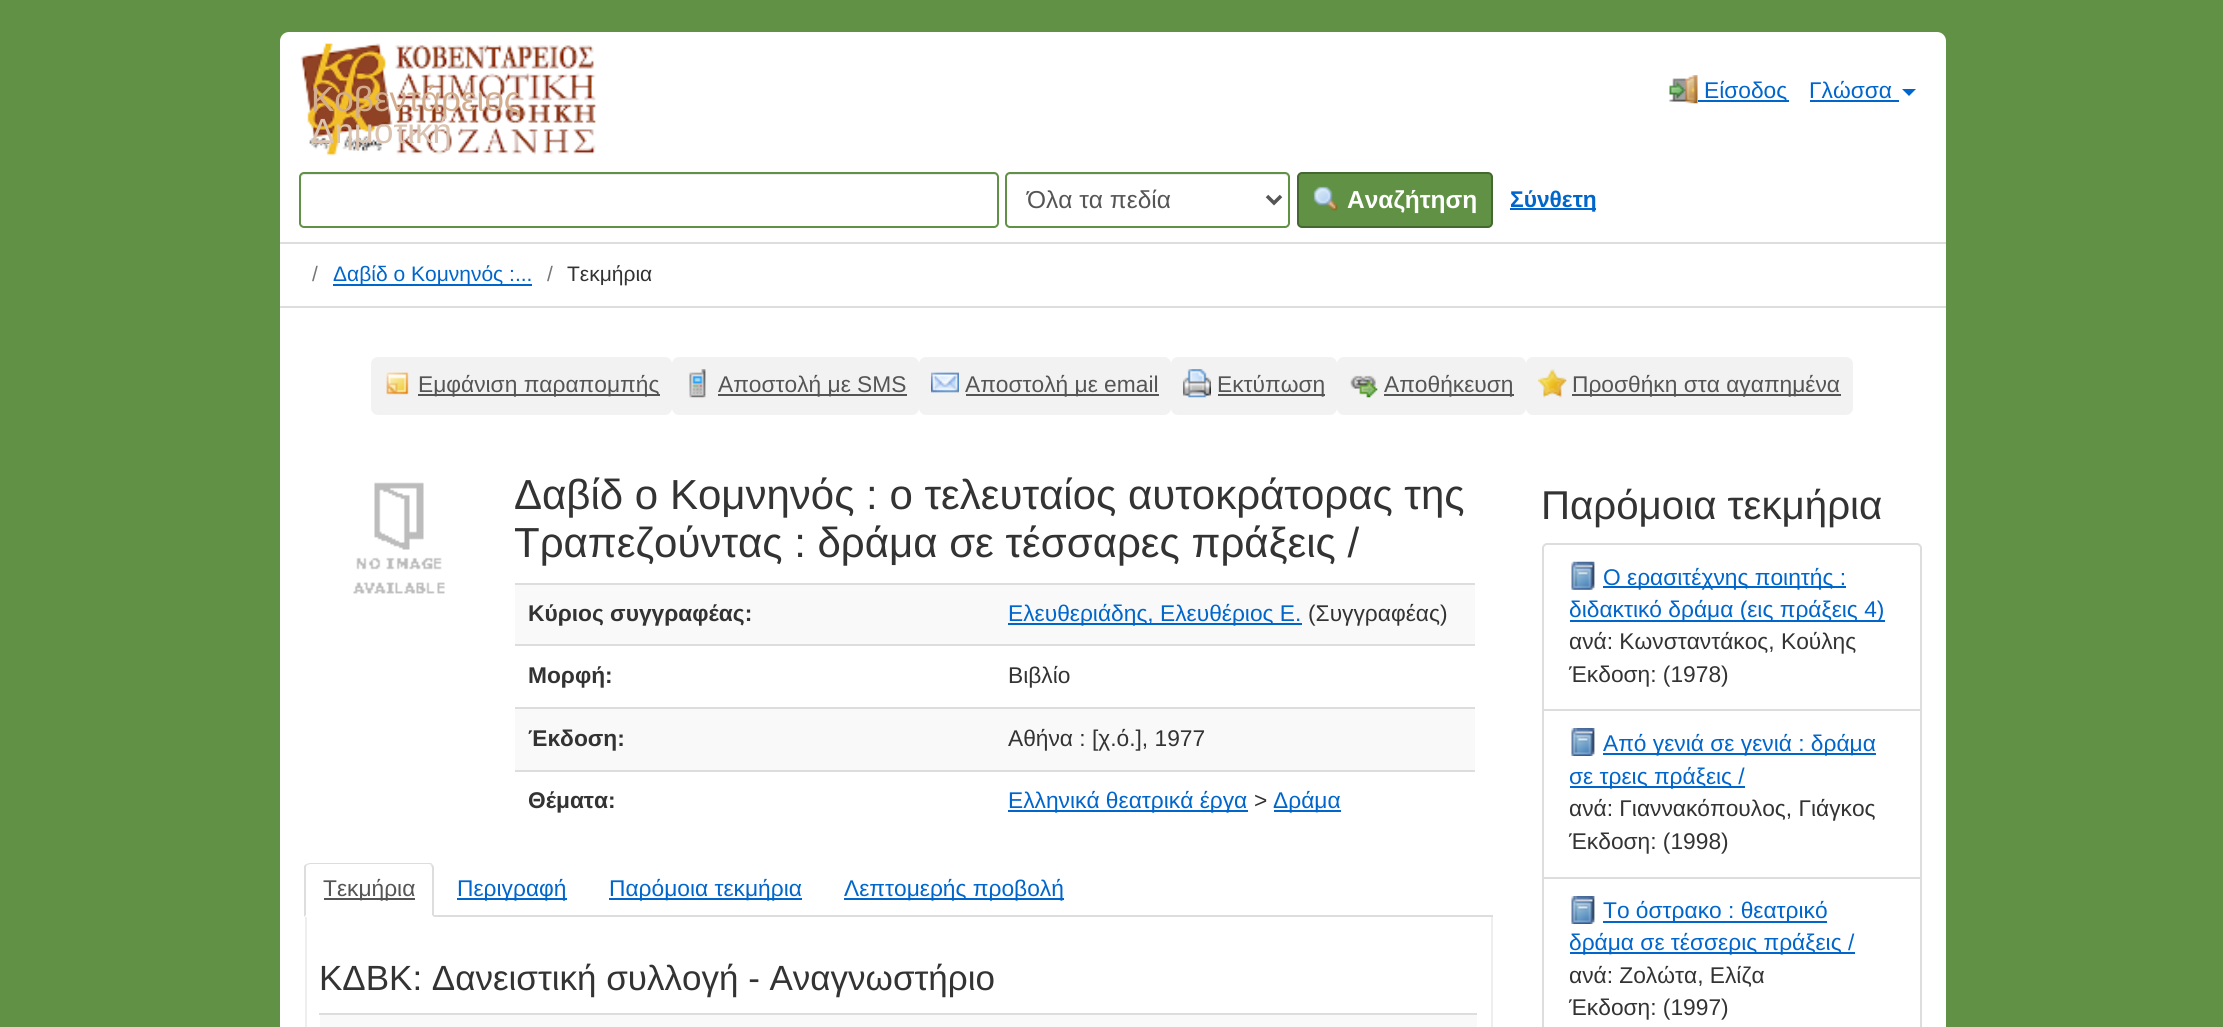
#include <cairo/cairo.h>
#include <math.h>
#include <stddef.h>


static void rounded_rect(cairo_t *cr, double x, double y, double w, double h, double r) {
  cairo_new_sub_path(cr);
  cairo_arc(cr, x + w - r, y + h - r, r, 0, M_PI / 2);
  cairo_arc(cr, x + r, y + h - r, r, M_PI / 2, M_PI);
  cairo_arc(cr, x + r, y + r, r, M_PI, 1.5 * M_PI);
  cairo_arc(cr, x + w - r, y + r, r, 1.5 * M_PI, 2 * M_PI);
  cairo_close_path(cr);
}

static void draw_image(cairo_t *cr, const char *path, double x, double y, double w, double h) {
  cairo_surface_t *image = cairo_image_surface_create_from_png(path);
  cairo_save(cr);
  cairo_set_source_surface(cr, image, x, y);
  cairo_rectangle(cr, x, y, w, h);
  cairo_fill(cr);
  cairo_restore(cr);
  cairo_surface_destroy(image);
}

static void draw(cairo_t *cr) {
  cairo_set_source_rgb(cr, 97 / 255.0, 145 / 255.0, 68 / 255.0);
  cairo_paint(cr);
  cairo_set_source_rgb(cr, 1, 1, 1);
  cairo_new_path(cr);
  cairo_move_to(cr, 289, 32);
  cairo_line_to(cr, 1937, 32);
  cairo_curve_to(cr, 1942, 32, 1946, 36, 1946, 41);
  cairo_line_to(cr, 1946, 158);
  cairo_line_to(cr, 280, 158);
  cairo_line_to(cr, 280, 41);
  cairo_curve_to(cr, 280, 36, 284, 32, 289, 32);
  cairo_close_path(cr);
  cairo_fill(cr);
  draw_image(cr, "images/1.png", 300, 43, 297, 113);
  draw_image(cr, "images/2.png", 1669, 75, 29, 29);
  cairo_set_source_rgb(cr, 0, 102 / 255.0, 204 / 255.0);
  cairo_rectangle(cr, 1698, 100, 91, 2);
  cairo_fill(cr);
  cairo_rectangle(cr, 1810, 100, 89, 2);
  cairo_fill(cr);
  cairo_new_path(cr);
  cairo_move_to(cr, 1902, 89);
  cairo_line_to(cr, 1916, 89);
  cairo_line_to(cr, 1909, 96);
  cairo_close_path(cr);
  cairo_fill(cr);
  cairo_set_source_rgb(cr, 1, 1, 1);
  cairo_rectangle(cr, 280, 158, 1666, 84);
  cairo_fill(cr);
  cairo_set_source_rgb(cr, 236 / 255.0, 236 / 255.0, 236 / 255.0);
  cairo_new_path(cr);
  cairo_move_to(cr, 304, 175);
  cairo_line_to(cr, 994, 175);
  cairo_curve_to(cr, 996, 175, 998, 177, 998, 178);
  cairo_curve_to(cr, 998, 175, 997, 173, 994, 173);
  cairo_line_to(cr, 305, 173);
  cairo_line_to(cr, 302, 174);
  cairo_line_to(cr, 301, 175);
  cairo_line_to(cr, 301, 178);
  cairo_curve_to(cr, 301, 177, 303, 175, 304, 175);
  cairo_close_path(cr);
  cairo_fill(cr);
  rounded_rect(cr, 300, 173, 698, 54, 4);
  cairo_set_source_rgb(cr, 97 / 255.0, 145 / 255.0, 68 / 255.0);
  cairo_stroke(cr);
  cairo_set_source_rgb(cr, 236 / 255.0, 236 / 255.0, 236 / 255.0);
  cairo_new_path(cr);
  cairo_move_to(cr, 1010, 175);
  cairo_line_to(cr, 1284, 175);
  cairo_curve_to(cr, 1286, 175, 1288, 177, 1288, 178);
  cairo_curve_to(cr, 1288, 175, 1287, 173, 1284, 173);
  cairo_line_to(cr, 1010, 173);
  cairo_curve_to(cr, 1007, 173, 1006, 175, 1006, 178);
  cairo_curve_to(cr, 1006, 177, 1008, 175, 1010, 175);
  cairo_close_path(cr);
  cairo_fill(cr);
  rounded_rect(cr, 1006, 173, 283, 54, 4);
  cairo_set_source_rgb(cr, 97 / 255.0, 145 / 255.0, 68 / 255.0);
  cairo_stroke(cr);
  cairo_new_path(cr);
  cairo_move_to(cr, 1267, 196);
  cairo_line_to(cr, 1274, 203);
  cairo_line_to(cr, 1281, 196);
  cairo_set_source_rgb(cr, 85 / 255.0, 85 / 255.0, 85 / 255.0);
  cairo_set_line_width(cr, 3.5);
  cairo_stroke(cr);
  cairo_set_source_rgb(cr, 97 / 255.0, 145 / 255.0, 68 / 255.0);
  rounded_rect(cr, 1298, 173, 194, 54, 4);
  cairo_fill_preserve(cr);
  cairo_set_source_rgb(cr, 69 / 255.0, 103 / 255.0, 48 / 255.0);
  cairo_set_line_width(cr, 2);
  cairo_stroke(cr);
  draw_image(cr, "images/3.png", 1313, 186, 25, 26);
  cairo_set_source_rgb(cr, 0, 102 / 255.0, 204 / 255.0);
  cairo_rectangle(cr, 1510, 208, 86, 2);
  cairo_fill(cr);
  cairo_set_source_rgb(cr, 1, 1, 1);
  cairo_rectangle(cr, 280, 244, 1666, 62);
  cairo_fill(cr);
  cairo_set_source_rgb(cr, 221 / 255.0, 221 / 255.0, 221 / 255.0);
  cairo_rectangle(cr, 280, 242, 1666, 2);
  cairo_fill(cr);
  cairo_rectangle(cr, 280, 306, 1666, 2);
  cairo_fill(cr);
  cairo_set_source_rgb(cr, 0, 102 / 255.0, 204 / 255.0);
  cairo_rectangle(cr, 333, 284, 199, 2);
  cairo_fill(cr);
  cairo_set_source_rgb(cr, 1, 1, 1);
  cairo_rectangle(cr, 280, 308, 1666, 719);
  cairo_fill(cr);
  cairo_set_source_rgb(cr, 242 / 255.0, 242 / 255.0, 242 / 255.0);
  rounded_rect(cr, 371, 357, 301, 58, 7);
  cairo_fill(cr);
  draw_image(cr, "images/4.png", 386, 372, 23, 23);
  cairo_set_source_rgb(cr, 85 / 255.0, 85 / 255.0, 85 / 255.0);
  cairo_rectangle(cr, 418, 394, 242, 2);
  cairo_fill(cr);
  cairo_set_source_rgb(cr, 242 / 255.0, 242 / 255.0, 242 / 255.0);
  rounded_rect(cr, 672, 357, 247, 58, 7);
  cairo_fill(cr);
  draw_image(cr, "images/5.png", 689, 369, 17, 29);
  cairo_set_source_rgb(cr, 85 / 255.0, 85 / 255.0, 85 / 255.0);
  cairo_rectangle(cr, 718, 394, 189, 2);
  cairo_fill(cr);
  cairo_set_source_rgb(cr, 242 / 255.0, 242 / 255.0, 242 / 255.0);
  rounded_rect(cr, 919, 357, 252, 58, 7);
  cairo_fill(cr);
  draw_image(cr, "images/6.png", 931, 372, 28, 21);
  cairo_set_source_rgb(cr, 85 / 255.0, 85 / 255.0, 85 / 255.0);
  cairo_rectangle(cr, 966, 394, 193, 2);
  cairo_fill(cr);
  cairo_set_source_rgb(cr, 242 / 255.0, 242 / 255.0, 242 / 255.0);
  rounded_rect(cr, 1171, 357, 166, 58, 7);
  cairo_fill(cr);
  draw_image(cr, "images/7.png", 1183, 369, 28, 29);
  cairo_set_source_rgb(cr, 85 / 255.0, 85 / 255.0, 85 / 255.0);
  cairo_rectangle(cr, 1218, 394, 107, 2);
  cairo_fill(cr);
  cairo_set_source_rgb(cr, 242 / 255.0, 242 / 255.0, 242 / 255.0);
  rounded_rect(cr, 1337, 357, 189, 58, 7);
  cairo_fill(cr);
  draw_image(cr, "images/8.png", 1350, 375, 28, 23);
  cairo_set_source_rgb(cr, 85 / 255.0, 85 / 255.0, 85 / 255.0);
  cairo_rectangle(cr, 1384, 394, 130, 2);
  cairo_fill(cr);
  cairo_set_source_rgb(cr, 242 / 255.0, 242 / 255.0, 242 / 255.0);
  rounded_rect(cr, 1526, 357, 327, 58, 7);
  cairo_fill(cr);
  draw_image(cr, "images/9.png", 1538, 369, 29, 29);
  cairo_set_source_rgb(cr, 85 / 255.0, 85 / 255.0, 85 / 255.0);
  cairo_rectangle(cr, 1572, 394, 269, 2);
  cairo_fill(cr);
  draw_image(cr, "images/10.png", 353, 482, 92, 112);
  cairo_set_source_rgb(cr, 249 / 255.0, 249 / 255.0, 249 / 255.0);
  cairo_rectangle(cr, 515, 585, 960, 59);
  cairo_fill(cr);
  cairo_set_source_rgb(cr, 221 / 255.0, 221 / 255.0, 221 / 255.0);
  cairo_rectangle(cr, 515, 583, 960, 2);
  cairo_fill(cr);
  cairo_set_source_rgb(cr, 0, 102 / 255.0, 204 / 255.0);
  cairo_rectangle(cr, 1008, 623, 294, 2);
  cairo_fill(cr);
  cairo_set_source_rgb(cr, 221 / 255.0, 221 / 255.0, 221 / 255.0);
  cairo_rectangle(cr, 515, 644, 960, 2);
  cairo_fill(cr);
  cairo_set_source_rgb(cr, 249 / 255.0, 249 / 255.0, 249 / 255.0);
  cairo_rectangle(cr, 515, 709, 960, 61);
  cairo_fill(cr);
  cairo_set_source_rgb(cr, 221 / 255.0, 221 / 255.0, 221 / 255.0);
  cairo_rectangle(cr, 515, 707, 960, 2);
  cairo_fill(cr);
  cairo_rectangle(cr, 515, 770, 960, 2);
  cairo_fill(cr);
  cairo_set_source_rgb(cr, 0, 102 / 255.0, 204 / 255.0);
  cairo_rectangle(cr, 1008, 810, 240, 2);
  cairo_fill(cr);
  cairo_rectangle(cr, 1274, 810, 67, 2);
  cairo_fill(cr);
  cairo_set_source_rgb(cr, 221 / 255.0, 221 / 255.0, 221 / 255.0);
  cairo_rectangle(cr, 434, 915, 1059, 2);
  cairo_fill(cr);
  cairo_new_path(cr);
  cairo_move_to(cr, 310, 863);
  cairo_line_to(cr, 306, 864);
  cairo_line_to(cr, 307, 865);
  cairo_line_to(cr, 310, 864);
  cairo_line_to(cr, 429, 864);
  cairo_curve_to(cr, 430, 864, 431, 865, 431, 865);
  cairo_line_to(cr, 432, 864);
  cairo_curve_to(cr, 432, 863, 430, 863, 429, 863);
  cairo_close_path(cr);
  cairo_fill(cr);
  cairo_new_path(cr);
  cairo_move_to(cr, 432, 864);
  cairo_curve_to(cr, 433, 865, 434, 866, 434, 868);
  cairo_line_to(cr, 434, 917);
  cairo_line_to(cr, 432, 915);
  cairo_line_to(cr, 432, 868);
  cairo_line_to(cr, 431, 865);
  cairo_close_path(cr);
  cairo_fill(cr);
  cairo_new_path(cr);
  cairo_move_to(cr, 304, 917);
  cairo_line_to(cr, 306, 915);
  cairo_line_to(cr, 306, 868);
  cairo_curve_to(cr, 306, 867, 306, 866, 307, 865);
  cairo_line_to(cr, 306, 864);
  cairo_line_to(cr, 304, 866);
  cairo_close_path(cr);
  cairo_fill(cr);
  cairo_set_source_rgb(cr, 85 / 255.0, 85 / 255.0, 85 / 255.0);
  cairo_rectangle(cr, 324, 898, 91, 2);
  cairo_fill(cr);
  cairo_set_source_rgb(cr, 0, 102 / 255.0, 204 / 255.0);
  cairo_rectangle(cr, 457, 898, 110, 2);
  cairo_fill(cr);
  cairo_rectangle(cr, 609, 898, 193, 2);
  cairo_fill(cr);
  cairo_rectangle(cr, 844, 898, 220, 2);
  cairo_fill(cr);
  cairo_set_source_rgb(cr, 238 / 255.0, 238 / 255.0, 238 / 255.0);
  cairo_rectangle(cr, 1491, 917, 2, 110);
  cairo_fill(cr);
  cairo_rectangle(cr, 305, 917, 2, 110);
  cairo_fill(cr);
  cairo_set_source_rgb(cr, 249 / 255.0, 249 / 255.0, 249 / 255.0);
  cairo_rectangle(cr, 320, 1015, 1157, 12);
  cairo_fill(cr);
  cairo_set_source_rgb(cr, 221 / 255.0, 221 / 255.0, 221 / 255.0);
  cairo_rectangle(cr, 319, 1013, 1158, 2);
  cairo_fill(cr);
  cairo_new_path(cr);
  cairo_move_to(cr, 1547, 544);
  cairo_line_to(cr, 1917, 544);
  cairo_curve_to(cr, 1919, 544, 1921, 546, 1921, 548);
  cairo_line_to(cr, 1921, 710);
  cairo_line_to(cr, 1543, 710);
  cairo_line_to(cr, 1543, 548);
  cairo_curve_to(cr, 1543, 546, 1545, 544, 1547, 544);
  cairo_close_path(cr);
  cairo_stroke(cr);
  draw_image(cr, "images/11.png", 1571, 561, 24, 29);
  cairo_set_source_rgb(cr, 0, 102 / 255.0, 204 / 255.0);
  cairo_rectangle(cr, 1603, 586, 243, 2);
  cairo_fill(cr);
  cairo_rectangle(cr, 1570, 620, 315, 2);
  cairo_fill(cr);
  cairo_rectangle(cr, 1543, 710, 378, 168);
  cairo_set_source_rgb(cr, 221 / 255.0, 221 / 255.0, 221 / 255.0);
  cairo_stroke(cr);
  draw_image(cr, "images/12.png", 1571, 728, 24, 28);
  cairo_set_source_rgb(cr, 0, 102 / 255.0, 204 / 255.0);
  cairo_rectangle(cr, 1603, 753, 273, 2);
  cairo_fill(cr);
  cairo_rectangle(cr, 1570, 786, 175, 2);
  cairo_fill(cr);
  cairo_rectangle(cr, 1543, 878, 378, 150);
  cairo_set_source_rgb(cr, 221 / 255.0, 221 / 255.0, 221 / 255.0);
  cairo_stroke(cr);
  draw_image(cr, "images/12.png", 1571, 896, 24, 28);
  cairo_set_source_rgb(cr, 0, 102 / 255.0, 204 / 255.0);
  cairo_rectangle(cr, 1603, 921, 224, 2);
  cairo_fill(cr);
  cairo_rectangle(cr, 1570, 952, 285, 2);
  cairo_fill(cr);
  cairo_select_font_face(cr, "Liberation Sans", CAIRO_FONT_SLANT_NORMAL, CAIRO_FONT_WEIGHT_NORMAL);
  cairo_set_font_size(cr, 35);
  cairo_set_source_rgb(cr, 211 / 255.0, 174 / 255.0, 142 / 255.0);
  cairo_move_to(cr, 311, 111);
  cairo_show_text(cr, "Κοβεντάρειος");
  cairo_set_source_rgb(cr, 218 / 255.0, 196 / 255.0, 177 / 255.0);
  cairo_move_to(cr, 311, 143);
  cairo_show_text(cr, "Δημοτική");
  cairo_set_font_size(cr, 22.75);
  cairo_set_source_rgb(cr, 0, 102 / 255.0, 204 / 255.0);
  cairo_move_to(cr, 1704, 98);
  cairo_show_text(cr, "Είσοδος");
  cairo_move_to(cr, 1809, 98);
  cairo_show_text(cr, "Γλώσσα");
  cairo_set_font_size(cr, 24.5);
  cairo_set_source_rgb(cr, 85 / 255.0, 85 / 255.0, 85 / 255.0);
  cairo_move_to(cr, 1027, 208);
  cairo_show_text(cr, "Όλα τα πεδία");
  cairo_select_font_face(cr, "Liberation Sans", CAIRO_FONT_SLANT_NORMAL, CAIRO_FONT_WEIGHT_BOLD);
  cairo_set_source_rgb(cr, 1, 1, 1);
  cairo_move_to(cr, 1347, 208);
  cairo_show_text(cr, "Αναζήτηση");
  cairo_set_font_size(cr, 22.75);
  cairo_set_source_rgb(cr, 0, 102 / 255.0, 204 / 255.0);
  cairo_move_to(cr, 1510, 207);
  cairo_show_text(cr, "Σύνθετη");
  cairo_select_font_face(cr, "Liberation Sans", CAIRO_FONT_SLANT_NORMAL, CAIRO_FONT_WEIGHT_NORMAL);
  cairo_set_font_size(cr, 21);
  cairo_set_source_rgb(cr, 119 / 255.0, 119 / 255.0, 119 / 255.0);
  cairo_move_to(cr, 312, 281);
  cairo_show_text(cr, "/");
  cairo_set_source_rgb(cr, 0, 102 / 255.0, 204 / 255.0);
  cairo_move_to(cr, 333, 281);
  cairo_show_text(cr, "Δαβίδ ο Κομνηνός :...");
  cairo_set_source_rgb(cr, 119 / 255.0, 119 / 255.0, 119 / 255.0);
  cairo_move_to(cr, 547, 281);
  cairo_show_text(cr, "/");
  cairo_set_source_rgb(cr, 51 / 255.0, 51 / 255.0, 51 / 255.0);
  cairo_move_to(cr, 567, 281);
  cairo_show_text(cr, "Τεκμήρια");
  cairo_set_font_size(cr, 22.75);
  cairo_set_source_rgb(cr, 85 / 255.0, 85 / 255.0, 85 / 255.0);
  cairo_move_to(cr, 418, 392);
  cairo_show_text(cr, "Εμφάνιση παραπομπής");
  cairo_move_to(cr, 718, 392);
  cairo_show_text(cr, "Αποστολή με SMS");
  cairo_move_to(cr, 965, 392);
  cairo_show_text(cr, "Αποστολή με email");
  cairo_move_to(cr, 1217, 392);
  cairo_show_text(cr, "Εκτύπωση");
  cairo_move_to(cr, 1384, 392);
  cairo_show_text(cr, "Αποθήκευση");
  cairo_move_to(cr, 1572, 392);
  cairo_show_text(cr, "Προσθήκη στα αγαπημένα");
  cairo_save(cr);
  cairo_rectangle(cr, 515, 471, 960, 392);
  cairo_clip(cr);
  cairo_set_font_size(cr, 42);
  cairo_set_source_rgb(cr, 51 / 255.0, 51 / 255.0, 51 / 255.0);
  cairo_move_to(cr, 514, 509);
  cairo_show_text(cr, "Δαβίδ ο Κομνηνός : ο τελευταίος αυτοκράτορας της");
  cairo_move_to(cr, 514, 557);
  cairo_show_text(cr, "Τραπεζούντας : δράμα σε τέσσαρες πράξεις /");
  cairo_restore(cr);
  cairo_select_font_face(cr, "Liberation Sans", CAIRO_FONT_SLANT_NORMAL, CAIRO_FONT_WEIGHT_BOLD);
  cairo_set_source_rgb(cr, 51 / 255.0, 51 / 255.0, 51 / 255.0);
  cairo_move_to(cr, 528, 621);
  cairo_show_text(cr, "Κύριος συγγραφέας:");
  cairo_select_font_face(cr, "Liberation Sans", CAIRO_FONT_SLANT_NORMAL, CAIRO_FONT_WEIGHT_NORMAL);
  cairo_set_source_rgb(cr, 0, 102 / 255.0, 204 / 255.0);
  cairo_move_to(cr, 1008, 621);
  cairo_show_text(cr, "Ελευθεριάδης, Ελευθέριος Ε.");
  cairo_set_source_rgb(cr, 51 / 255.0, 51 / 255.0, 51 / 255.0);
  cairo_move_to(cr, 1308, 621);
  cairo_show_text(cr, "(Συγγραφέας)");
  cairo_select_font_face(cr, "Liberation Sans", CAIRO_FONT_SLANT_NORMAL, CAIRO_FONT_WEIGHT_BOLD);
  cairo_move_to(cr, 528, 683);
  cairo_show_text(cr, "Μορφή:");
  cairo_select_font_face(cr, "Liberation Sans", CAIRO_FONT_SLANT_NORMAL, CAIRO_FONT_WEIGHT_NORMAL);
  cairo_move_to(cr, 1008, 683);
  cairo_show_text(cr, "Βιβλίο");
  cairo_select_font_face(cr, "Liberation Sans", CAIRO_FONT_SLANT_NORMAL, CAIRO_FONT_WEIGHT_BOLD);
  cairo_move_to(cr, 528, 746);
  cairo_show_text(cr, "Έκδοση:");
  cairo_select_font_face(cr, "Liberation Sans", CAIRO_FONT_SLANT_NORMAL, CAIRO_FONT_WEIGHT_NORMAL);
  cairo_move_to(cr, 1008, 746);
  cairo_show_text(cr, "Αθήνα : [χ.ό.], 1977");
  cairo_select_font_face(cr, "Liberation Sans", CAIRO_FONT_SLANT_NORMAL, CAIRO_FONT_WEIGHT_BOLD);
  cairo_move_to(cr, 528, 808);
  cairo_show_text(cr, "Θέματα:");
  cairo_select_font_face(cr, "Liberation Sans", CAIRO_FONT_SLANT_NORMAL, CAIRO_FONT_WEIGHT_NORMAL);
  cairo_set_source_rgb(cr, 0, 102 / 255.0, 204 / 255.0);
  cairo_move_to(cr, 1008, 808);
  cairo_show_text(cr, "Ελληνικά θεατρικά έργα");
  cairo_set_source_rgb(cr, 51 / 255.0, 51 / 255.0, 51 / 255.0);
  cairo_move_to(cr, 1254, 808);
  cairo_show_text(cr, ">");
  cairo_set_source_rgb(cr, 0, 102 / 255.0, 204 / 255.0);
  cairo_move_to(cr, 1273, 808);
  cairo_show_text(cr, "Δράμα");
  cairo_set_source_rgb(cr, 85 / 255.0, 85 / 255.0, 85 / 255.0);
  cairo_move_to(cr, 323, 896);
  cairo_show_text(cr, "Τεκμήρια");
  cairo_set_source_rgb(cr, 0, 102 / 255.0, 204 / 255.0);
  cairo_move_to(cr, 457, 896);
  cairo_show_text(cr, "Περιγραφή");
  cairo_move_to(cr, 609, 896);
  cairo_show_text(cr, "Παρόμοια τεκμήρια");
  cairo_move_to(cr, 844, 896);
  cairo_show_text(cr, "Λεπτομερής προβολή");
  cairo_set_font_size(cr, 35);
  cairo_set_source_rgb(cr, 51 / 255.0, 51 / 255.0, 51 / 255.0);
  cairo_move_to(cr, 319, 990);
  cairo_show_text(cr, "ΚΔΒΚ: Δανειστική συλλογή - Αναγνωστήριο");
  cairo_set_font_size(cr, 40.25);
  cairo_move_to(cr, 1541, 519);
  cairo_show_text(cr, "Παρόμοια τεκμήρια");
  cairo_set_font_size(cr, 22.75);
  cairo_set_source_rgb(cr, 0, 102 / 255.0, 204 / 255.0);
  cairo_move_to(cr, 1603, 585);
  cairo_show_text(cr, "Ο ερασιτέχνης ποιητής :");
  cairo_move_to(cr, 1569, 617);
  cairo_show_text(cr, "διδακτικό δράμα (εις πράξεις 4)");
  cairo_set_source_rgb(cr, 51 / 255.0, 51 / 255.0, 51 / 255.0);
  cairo_move_to(cr, 1569, 649);
  cairo_show_text(cr, "ανά: Κωνσταντάκος, Κούλης");
  cairo_move_to(cr, 1569, 682);
  cairo_show_text(cr, "Έκδοση: (1978)");
  cairo_set_source_rgb(cr, 0, 102 / 255.0, 204 / 255.0);
  cairo_move_to(cr, 1603, 751);
  cairo_show_text(cr, "Από γενιά σε γενιά : δράμα");
  cairo_move_to(cr, 1569, 784);
  cairo_show_text(cr, "σε τρεις πράξεις /");
  cairo_set_source_rgb(cr, 51 / 255.0, 51 / 255.0, 51 / 255.0);
  cairo_move_to(cr, 1569, 816);
  cairo_show_text(cr, "ανά: Γιαννακόπουλος, Γιάγκος");
  cairo_move_to(cr, 1569, 849);
  cairo_show_text(cr, "Έκδοση: (1998)");
  cairo_set_source_rgb(cr, 0, 102 / 255.0, 204 / 255.0);
  cairo_move_to(cr, 1603, 918);
  cairo_show_text(cr, "Το όστρακο : θεατρικό");
  cairo_move_to(cr, 1569, 950);
  cairo_show_text(cr, "δράμα σε τέσσερις πράξεις /");
  cairo_set_source_rgb(cr, 51 / 255.0, 51 / 255.0, 51 / 255.0);
  cairo_move_to(cr, 1569, 983);
  cairo_show_text(cr, "ανά: Ζολώτα, Ελίζα");
  cairo_move_to(cr, 1569, 1015);
  cairo_show_text(cr, "Έκδοση: (1997)");
}

int main(void) {
  cairo_surface_t *surface = cairo_image_surface_create(CAIRO_FORMAT_RGB24, 2223, 1027);
  cairo_t *cr = cairo_create(surface);
  cairo_font_options_t *options = cairo_font_options_create();
  cairo_font_options_set_hint_metrics(options, CAIRO_HINT_METRICS_OFF);
  cairo_font_options_set_hint_style(options, CAIRO_HINT_STYLE_NONE);
  cairo_set_font_options(cr, options);
  cairo_set_miter_limit(cr, 4);
  draw(cr);
  cairo_surface_write_to_png(surface, "out.png");
  cairo_font_options_destroy(options);
  cairo_destroy(cr);
  cairo_surface_destroy(surface);
  return 0;
}
